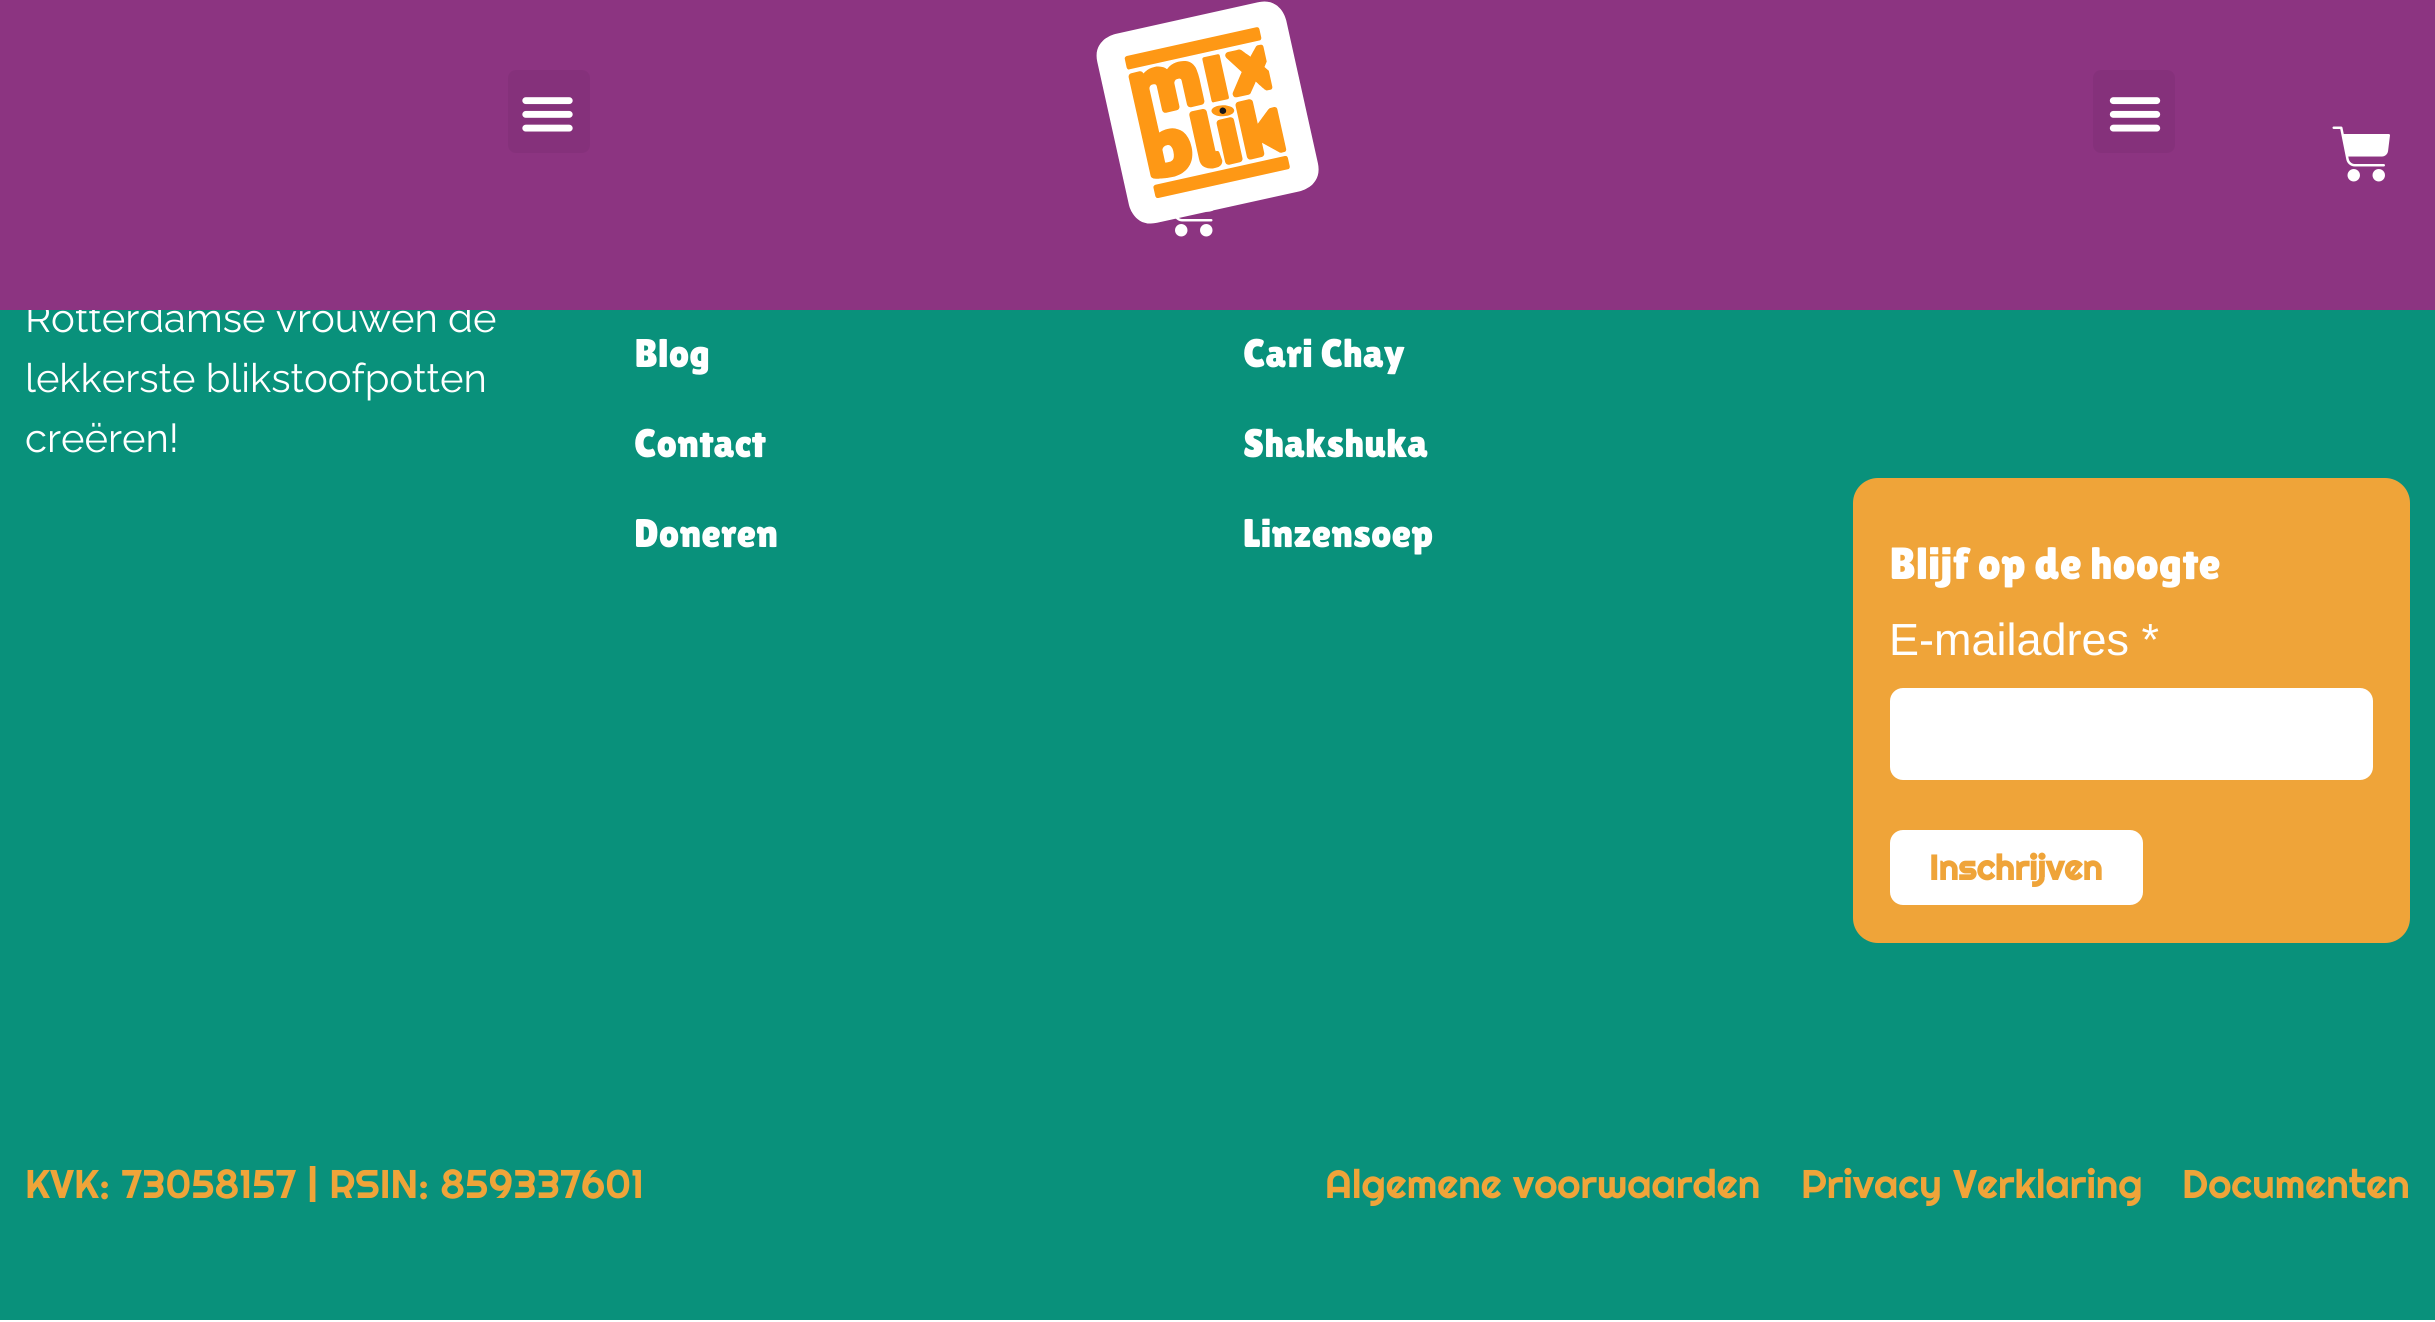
#include <cairo/cairo.h>
#include <math.h>
#include <stddef.h>


static void rounded_rect(cairo_t *cr, double x, double y, double w, double h, double r) {
  cairo_new_sub_path(cr);
  cairo_arc(cr, x + w - r, y + h - r, r, 0, M_PI / 2);
  cairo_arc(cr, x + r, y + h - r, r, M_PI / 2, M_PI);
  cairo_arc(cr, x + r, y + r, r, M_PI, 1.5 * M_PI);
  cairo_arc(cr, x + w - r, y + r, r, 1.5 * M_PI, 2 * M_PI);
  cairo_close_path(cr);
}

static void draw_image(cairo_t *cr, const char *path, double x, double y, double w, double h) {
  cairo_surface_t *image = cairo_image_surface_create_from_png(path);
  cairo_save(cr);
  cairo_set_source_surface(cr, image, x, y);
  cairo_rectangle(cr, x, y, w, h);
  cairo_fill(cr);
  cairo_restore(cr);
  cairo_surface_destroy(image);
}

static void draw(cairo_t *cr) {
  cairo_set_source_rgb(cr, 1, 1, 1);
  cairo_paint(cr);
  cairo_set_source_rgb(cr, 9 / 255.0, 145 / 255.0, 123 / 255.0);
  cairo_rectangle(cr, 0, 310, 2435, 1010);
  cairo_fill(cr);
  cairo_set_source_rgb(cr, 239 / 255.0, 164 / 255.0, 57 / 255.0);
  rounded_rect(cr, 1853, 478, 557, 465, 25);
  cairo_fill(cr);
  cairo_set_source_rgb(cr, 1, 1, 1);
  rounded_rect(cr, 1890, 688, 483, 92, 13);
  cairo_fill(cr);
  rounded_rect(cr, 1890, 830, 253, 75, 13);
  cairo_fill(cr);
  cairo_select_font_face(cr, "Raleway", CAIRO_FONT_SLANT_NORMAL, CAIRO_FONT_WEIGHT_NORMAL);
  cairo_set_font_size(cr, 40);
  cairo_move_to(cr, 25, 332);
  cairo_show_text(cr, "Rotterdamse vrouwen de");
  cairo_set_source_rgb(cr, 140 / 255.0, 52 / 255.0, 129 / 255.0);
  cairo_rectangle(cr, 0, 0, 2435, 310);
  cairo_fill(cr);
  draw_image(cr, "images/3.png", 1175, 210, 39, 27);
  draw_image(cr, "images/2.png", 1096, 1, 223, 223);
  draw_image(cr, "images/5.png", 2332, 126, 58, 56);
  cairo_set_source_rgb(cr, 133 / 255.0, 49 / 255.0, 123 / 255.0);
  rounded_rect(cr, 2093, 70, 82, 83, 8);
  cairo_fill(cr);
  draw_image(cr, "images/4.png", 2109, 97, 52, 35);
  rounded_rect(cr, 508, 70, 82, 83, 8);
  cairo_fill(cr);
  draw_image(cr, "images/1.png", 522, 97, 51, 35);
  cairo_set_source_rgb(cr, 1, 1, 1);
  cairo_move_to(cr, 25, 392);
  cairo_show_text(cr, "lekkerste blikstoofpotten");
  cairo_move_to(cr, 25, 452);
  cairo_show_text(cr, "creëren!");
  cairo_select_font_face(cr, "Lilita One", CAIRO_FONT_SLANT_NORMAL, CAIRO_FONT_WEIGHT_NORMAL);
  cairo_move_to(cr, 634, 367);
  cairo_show_text(cr, "Blog");
  cairo_move_to(cr, 634, 457);
  cairo_show_text(cr, "Contact");
  cairo_move_to(cr, 634, 547);
  cairo_show_text(cr, "Doneren");
  cairo_move_to(cr, 1243, 367);
  cairo_show_text(cr, "Cari Chay");
  cairo_move_to(cr, 1243, 457);
  cairo_show_text(cr, "Shakshuka");
  cairo_move_to(cr, 1243, 547);
  cairo_show_text(cr, "Linzensoep");
  cairo_set_font_size(cr, 45);
  cairo_move_to(cr, 1889, 579);
  cairo_show_text(cr, "Blijf op de hoogte");
  cairo_select_font_face(cr, "Liberation Sans", CAIRO_FONT_SLANT_NORMAL, CAIRO_FONT_WEIGHT_NORMAL);
  cairo_move_to(cr, 1889, 655);
  cairo_show_text(cr, "E-mailadres *");
  cairo_select_font_face(cr, "Righteous", CAIRO_FONT_SLANT_NORMAL, CAIRO_FONT_WEIGHT_BOLD);
  cairo_set_font_size(cr, 35);
  cairo_set_source_rgb(cr, 239 / 255.0, 164 / 255.0, 57 / 255.0);
  cairo_move_to(cr, 1929, 880);
  cairo_show_text(cr, "Inschrijven");
  cairo_select_font_face(cr, "Righteous", CAIRO_FONT_SLANT_NORMAL, CAIRO_FONT_WEIGHT_NORMAL);
  cairo_set_font_size(cr, 40);
  cairo_move_to(cr, 25, 1198);
  cairo_show_text(cr, "KVK: 73058157 | RSIN: 859337601");
  cairo_move_to(cr, 1325, 1198);
  cairo_show_text(cr, "Algemene voorwaarden");
  cairo_move_to(cr, 1801, 1198);
  cairo_show_text(cr, "Privacy Verklaring");
  cairo_move_to(cr, 2182, 1198);
  cairo_show_text(cr, "Documenten");
}

int main(void) {
  cairo_surface_t *surface = cairo_image_surface_create(CAIRO_FORMAT_RGB24, 2435, 1322);
  cairo_t *cr = cairo_create(surface);
  cairo_font_options_t *options = cairo_font_options_create();
  cairo_font_options_set_hint_metrics(options, CAIRO_HINT_METRICS_OFF);
  cairo_font_options_set_hint_style(options, CAIRO_HINT_STYLE_NONE);
  cairo_set_font_options(cr, options);
  cairo_set_miter_limit(cr, 4);
  draw(cr);
  cairo_surface_write_to_png(surface, "out.png");
  cairo_font_options_destroy(options);
  cairo_destroy(cr);
  cairo_surface_destroy(surface);
  return 0;
}
